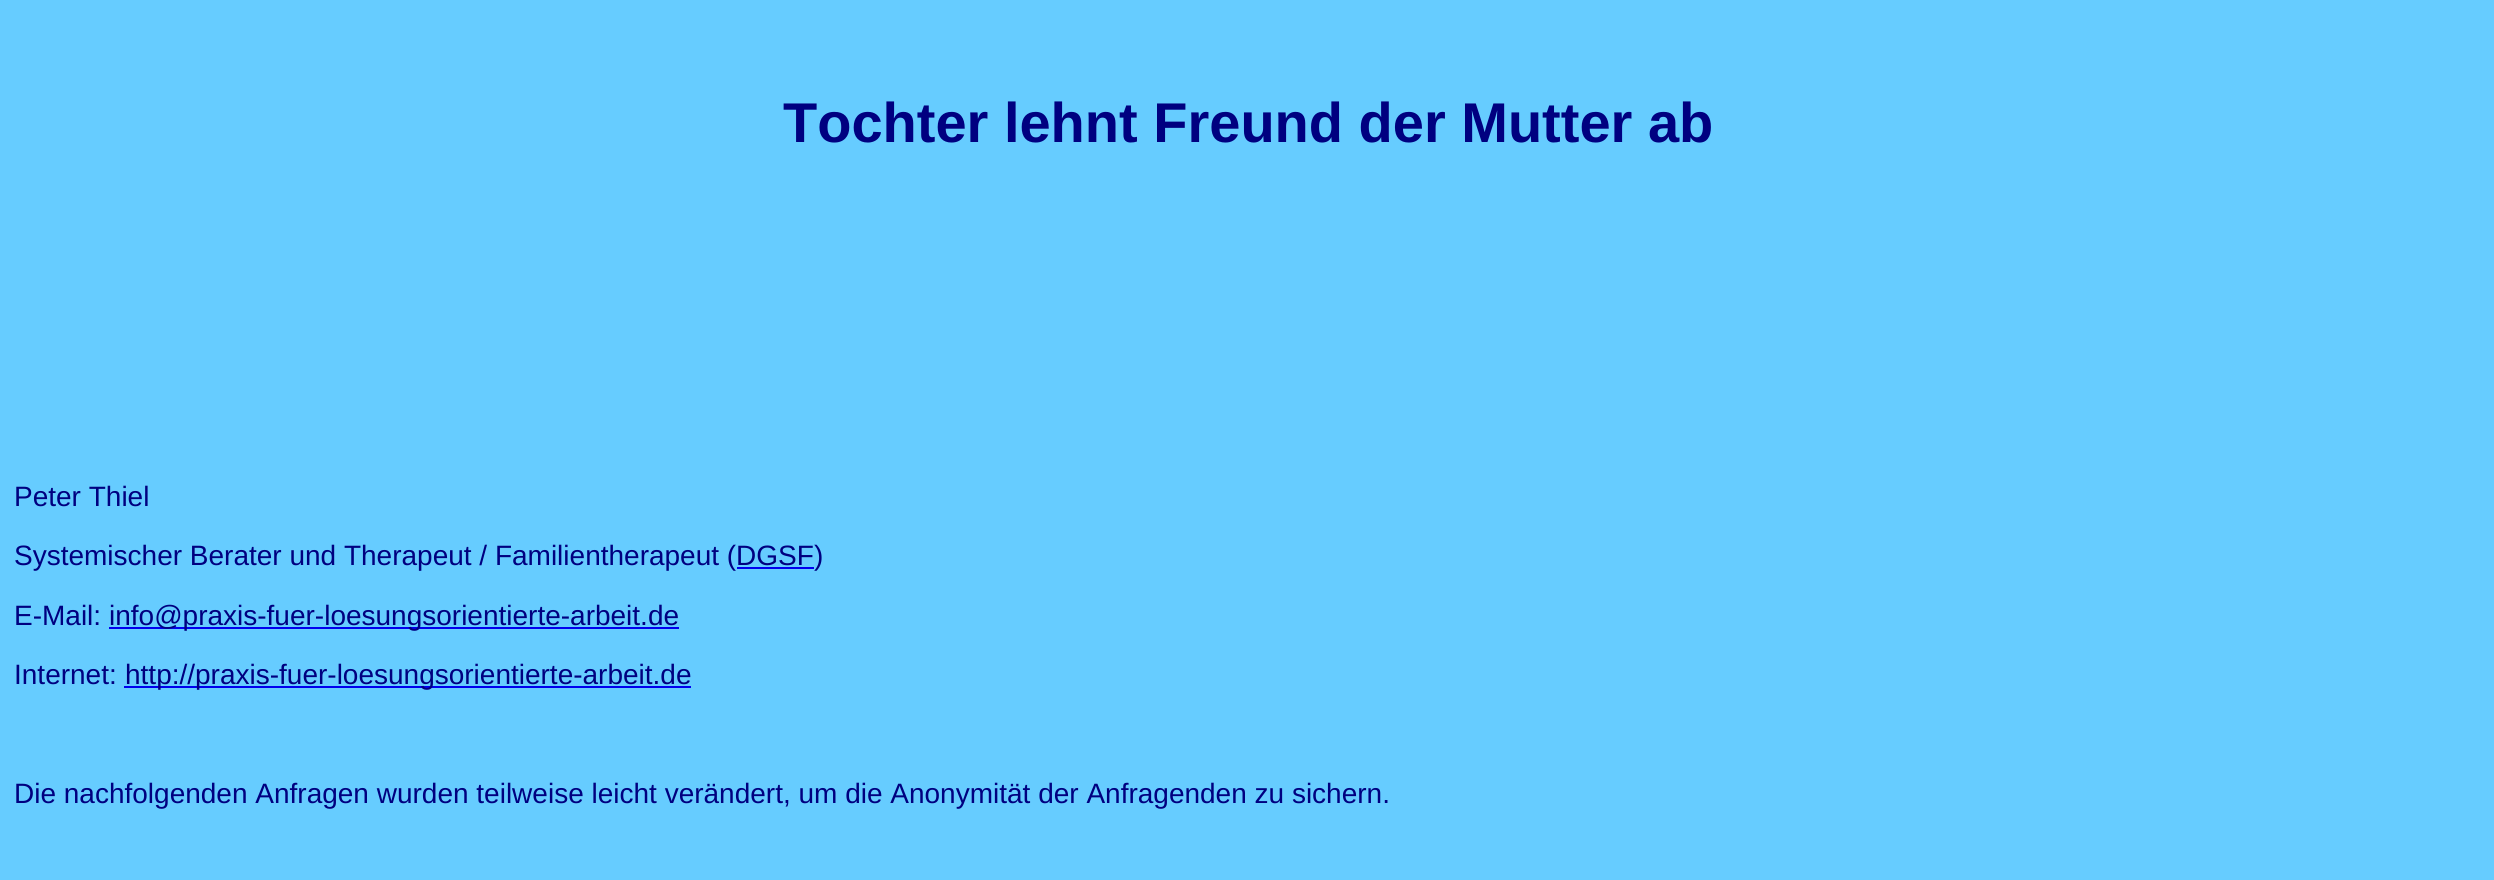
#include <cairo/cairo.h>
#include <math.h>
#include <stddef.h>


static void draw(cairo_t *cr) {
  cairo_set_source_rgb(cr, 102 / 255.0, 204 / 255.0, 1);
  cairo_paint(cr);
  cairo_set_source_rgb(cr, 0, 0, 238 / 255.0);
  cairo_rectangle(cr, 109, 627, 570, 2);
  cairo_fill(cr);
  cairo_rectangle(cr, 124, 686, 567, 2);
  cairo_fill(cr);
  cairo_select_font_face(cr, "Liberation Sans", CAIRO_FONT_SLANT_NORMAL, CAIRO_FONT_WEIGHT_BOLD);
  cairo_set_font_size(cr, 56);
  cairo_set_source_rgb(cr, 0, 0, 128 / 255.0);
  cairo_move_to(cr, 783, 142);
  cairo_show_text(cr, "Tochter lehnt Freund der Mutter ab");
  cairo_select_font_face(cr, "Liberation Sans", CAIRO_FONT_SLANT_NORMAL, CAIRO_FONT_WEIGHT_NORMAL);
  cairo_set_font_size(cr, 28);
  cairo_move_to(cr, 14, 506);
  cairo_show_text(cr, "Peter Thiel");
  cairo_move_to(cr, 14, 565);
  cairo_show_text(cr, "Systemischer Berater und Therapeut / Familientherapeut (DGSF)");
  cairo_set_source_rgb(cr, 0, 0, 238 / 255.0);
  cairo_rectangle(cr, 737, 567, 77, 2);
  cairo_fill(cr);
  cairo_set_source_rgb(cr, 0, 0, 128 / 255.0);
  cairo_move_to(cr, 14, 625);
  cairo_show_text(cr, "E-Mail:");
  cairo_move_to(cr, 109, 625);
  cairo_show_text(cr, "info@praxis-fuer-loesungsorientierte-arbeit.de");
  cairo_move_to(cr, 14, 684);
  cairo_show_text(cr, "Internet:");
  cairo_move_to(cr, 125, 684);
  cairo_show_text(cr, "http://praxis-fuer-loesungsorientierte-arbeit.de");
  cairo_move_to(cr, 14, 803);
  cairo_show_text(cr, "Die nachfolgenden Anfragen wurden teilweise leicht verändert, um die Anonymität der Anfragenden zu sichern.");
}

int main(void) {
  cairo_surface_t *surface = cairo_image_surface_create(CAIRO_FORMAT_RGB24, 2494, 880);
  cairo_t *cr = cairo_create(surface);
  cairo_font_options_t *options = cairo_font_options_create();
  cairo_font_options_set_hint_metrics(options, CAIRO_HINT_METRICS_OFF);
  cairo_font_options_set_hint_style(options, CAIRO_HINT_STYLE_NONE);
  cairo_set_font_options(cr, options);
  cairo_set_miter_limit(cr, 4);
  draw(cr);
  cairo_surface_write_to_png(surface, "out.png");
  cairo_font_options_destroy(options);
  cairo_destroy(cr);
  cairo_surface_destroy(surface);
  return 0;
}
